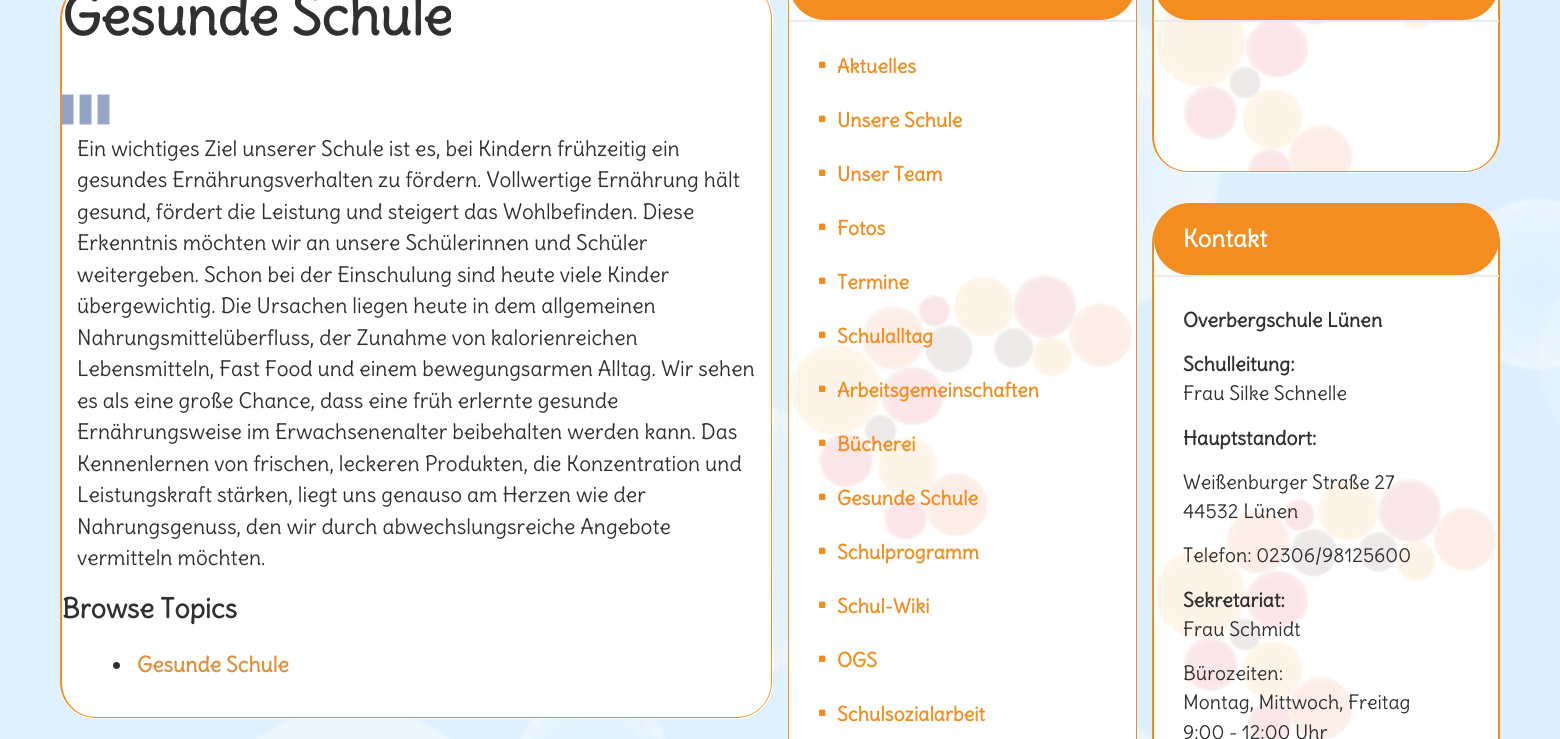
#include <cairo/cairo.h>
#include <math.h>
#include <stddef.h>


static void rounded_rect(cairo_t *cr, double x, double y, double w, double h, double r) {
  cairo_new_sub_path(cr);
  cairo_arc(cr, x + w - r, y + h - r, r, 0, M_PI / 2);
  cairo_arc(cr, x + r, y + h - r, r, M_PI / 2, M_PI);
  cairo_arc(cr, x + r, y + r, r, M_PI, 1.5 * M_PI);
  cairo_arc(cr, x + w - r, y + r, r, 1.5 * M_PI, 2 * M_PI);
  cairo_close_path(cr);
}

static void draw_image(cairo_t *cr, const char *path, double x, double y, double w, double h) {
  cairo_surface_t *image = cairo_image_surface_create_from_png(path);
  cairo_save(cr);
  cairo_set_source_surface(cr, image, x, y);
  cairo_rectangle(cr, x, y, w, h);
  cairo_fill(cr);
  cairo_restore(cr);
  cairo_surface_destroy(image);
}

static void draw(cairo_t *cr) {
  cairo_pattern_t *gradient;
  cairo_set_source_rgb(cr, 1, 1, 1);
  cairo_paint(cr);
  gradient = cairo_pattern_create_radial(548, 359, 0, 548, 359, 774);
  cairo_pattern_add_color_stop_rgba(gradient, 0, 223 / 255.0, 240 / 255.0, 1, 1);
  cairo_pattern_add_color_stop_rgba(gradient, 0.11, 226 / 255.0, 241 / 255.0, 1, 1);
  cairo_pattern_add_color_stop_rgba(gradient, 0.13, 229 / 255.0, 243 / 255.0, 1, 1);
  cairo_pattern_add_color_stop_rgba(gradient, 0.14, 223 / 255.0, 240 / 255.0, 1, 1);
  cairo_set_source(cr, gradient);
  cairo_pattern_destroy(gradient);
  cairo_rectangle(cr, 0, 0, 788, 739);
  cairo_fill(cr);
  gradient = cairo_pattern_create_radial(1643, 359, 0, 1643, 359, 774);
  cairo_pattern_add_color_stop_rgba(gradient, 0, 221 / 255.0, 239 / 255.0, 1, 1);
  cairo_pattern_add_color_stop_rgba(gradient, 0.11, 224 / 255.0, 241 / 255.0, 1, 1);
  cairo_pattern_add_color_stop_rgba(gradient, 0.13, 228 / 255.0, 242 / 255.0, 1, 1);
  cairo_pattern_add_color_stop_rgba(gradient, 0.14, 221 / 255.0, 239 / 255.0, 1, 1);
  cairo_set_source(cr, gradient);
  cairo_pattern_destroy(gradient);
  cairo_rectangle(cr, 1137, 0, 423, 739);
  cairo_fill(cr);
  gradient = cairo_pattern_create_radial(593, 764, 0, 593, 764, 562);
  cairo_pattern_add_color_stop_rgba(gradient, 0, 1, 1, 1, 0);
  cairo_pattern_add_color_stop_rgba(gradient, 0.11, 1, 1, 1, 0.2);
  cairo_pattern_add_color_stop_rgba(gradient, 0.13, 1, 1, 1, 0.4);
  cairo_pattern_add_color_stop_rgba(gradient, 0.14, 1, 1, 1, 0);
  cairo_set_source(cr, gradient);
  cairo_pattern_destroy(gradient);
  cairo_rectangle(cr, 520, 719, 146, 20);
  cairo_fill(cr);
  gradient = cairo_pattern_create_radial(1178, 14, 0, 1178, 14, 647);
  cairo_pattern_add_color_stop_rgba(gradient, 0, 1, 1, 1, 0);
  cairo_pattern_add_color_stop_rgba(gradient, 0.11, 1, 1, 1, 0.2);
  cairo_pattern_add_color_stop_rgba(gradient, 0.13, 1, 1, 1, 0.4);
  cairo_pattern_add_color_stop_rgba(gradient, 0.14, 1, 1, 1, 0);
  cairo_set_source(cr, gradient);
  cairo_pattern_destroy(gradient);
  cairo_rectangle(cr, 1137, 0, 15, 99);
  cairo_fill(cr);
  gradient = cairo_pattern_create_radial(1538, 284, 0, 1538, 284, 435);
  cairo_pattern_add_color_stop_rgba(gradient, 0, 1, 1, 1, 0);
  cairo_pattern_add_color_stop_rgba(gradient, 0.17, 1, 1, 1, 0.3);
  cairo_pattern_add_color_stop_rgba(gradient, 0.19, 1, 1, 1, 0.43);
  cairo_pattern_add_color_stop_rgba(gradient, 0.2, 1, 1, 1, 0);
  cairo_set_source(cr, gradient);
  cairo_pattern_destroy(gradient);
  cairo_rectangle(cr, 1487, 198, 73, 172);
  cairo_fill(cr);
  gradient = cairo_pattern_create_radial(728, 539, 0, 728, 539, 1029);
  cairo_pattern_add_color_stop_rgba(gradient, 0, 1, 1, 1, 0);
  cairo_pattern_add_color_stop_rgba(gradient, 0.11, 1, 1, 1, 0.2);
  cairo_pattern_add_color_stop_rgba(gradient, 0.13, 1, 1, 1, 0.4);
  cairo_pattern_add_color_stop_rgba(gradient, 0.14, 1, 1, 1, 0);
  cairo_set_source(cr, gradient);
  cairo_pattern_destroy(gradient);
  cairo_rectangle(cr, 773, 405, 15, 268);
  cairo_fill(cr);
  gradient = cairo_pattern_create_radial(1058, 164, 0, 1058, 164, 499);
  cairo_pattern_add_color_stop_rgba(gradient, 0, 1, 1, 1, 0);
  cairo_pattern_add_color_stop_rgba(gradient, 0.3, 1, 1, 1, 0.45);
  cairo_pattern_add_color_stop_rgba(gradient, 0.32, 1, 1, 1, 0.4);
  cairo_pattern_add_color_stop_rgba(gradient, 0.33, 1, 1, 1, 0);
  cairo_set_source(cr, gradient);
  cairo_pattern_destroy(gradient);
  cairo_rectangle(cr, 1137, 21, 85, 286);
  cairo_fill(cr);
  gradient = cairo_pattern_create_radial(353, 869, 0, 353, 869, 499);
  cairo_pattern_add_color_stop_rgba(gradient, 0, 1, 1, 1, 0);
  cairo_pattern_add_color_stop_rgba(gradient, 0.3, 1, 1, 1, 0.45);
  cairo_pattern_add_color_stop_rgba(gradient, 0.32, 1, 1, 1, 0.4);
  cairo_pattern_add_color_stop_rgba(gradient, 0.33, 1, 1, 1, 0);
  cairo_set_source(cr, gradient);
  cairo_pattern_destroy(gradient);
  cairo_rectangle(cr, 254, 719, 198, 20);
  cairo_fill(cr);
  gradient = cairo_pattern_create_radial(1058, 869, 0, 1058, 869, 499);
  cairo_pattern_add_color_stop_rgba(gradient, 0, 1, 1, 1, 0);
  cairo_pattern_add_color_stop_rgba(gradient, 0.3, 1, 1, 1, 0.45);
  cairo_pattern_add_color_stop_rgba(gradient, 0.32, 1, 1, 1, 0.4);
  cairo_pattern_add_color_stop_rgba(gradient, 0.33, 1, 1, 1, 0);
  cairo_set_source(cr, gradient);
  cairo_pattern_destroy(gradient);
  cairo_rectangle(cr, 1137, 726, 15, 13);
  cairo_fill(cr);
  cairo_set_source_rgb(cr, 1, 1, 1);
  cairo_new_path(cr);
  cairo_move_to(cr, 101, -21);
  cairo_line_to(cr, 732, -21);
  cairo_curve_to(cr, 754.5, -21, 773, -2.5, 773, 20);
  cairo_line_to(cr, 773, 683);
  cairo_curve_to(cr, 773, 703, 757, 719, 737, 719);
  cairo_line_to(cr, 96, 719);
  cairo_curve_to(cr, 76, 719, 60, 703, 60, 683);
  cairo_line_to(cr, 60, 20);
  cairo_curve_to(cr, 60, -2.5, 78.5, -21, 101, -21);
  cairo_close_path(cr);
  cairo_fill(cr);
  cairo_set_source_rgb(cr, 243 / 255.0, 141 / 255.0, 32 / 255.0);
  cairo_set_fill_rule(cr, CAIRO_FILL_RULE_EVEN_ODD);
  cairo_new_path(cr);
  cairo_move_to(cr, 100, -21);
  cairo_line_to(cr, 732, -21);
  cairo_curve_to(cr, 754, -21, 772, -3, 772, 20);
  cairo_line_to(cr, 772, 682);
  cairo_curve_to(cr, 772, 702, 756, 718, 736, 718);
  cairo_line_to(cr, 96, 718);
  cairo_curve_to(cr, 76, 718, 60, 702, 60, 682);
  cairo_line_to(cr, 60, 20);
  cairo_curve_to(cr, 60, -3, 78, -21, 100, -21);
  cairo_close_path(cr);
  cairo_move_to(cr, 100, -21);
  cairo_line_to(cr, 732, -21);
  cairo_curve_to(cr, 754, -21, 771, -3, 771, 20);
  cairo_line_to(cr, 771, 682);
  cairo_curve_to(cr, 771, 702, 756, 717, 736, 717);
  cairo_line_to(cr, 96, 717);
  cairo_curve_to(cr, 77, 717, 62, 702, 62, 682);
  cairo_line_to(cr, 62, 20);
  cairo_curve_to(cr, 62, -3, 79, -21, 100, -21);
  cairo_close_path(cr);
  cairo_fill(cr);
  draw_image(cr, "images/1.png", 61, 94, 49, 31);
  cairo_set_source_rgb(cr, 48 / 255.0, 48 / 255.0, 48 / 255.0);
  cairo_arc(cr, 116.5, 665.5, 3.5, 0, 2 * M_PI);
  cairo_fill(cr);
  draw_image(cr, "images/2.png", 790, 274, 342, 266);
  cairo_set_source_rgb(cr, 243 / 255.0, 141 / 255.0, 32 / 255.0);
  cairo_new_path(cr);
  cairo_move_to(cr, 828, -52);
  cairo_line_to(cr, 1096, -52);
  cairo_curve_to(cr, 1119, -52, 1137, -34, 1137, -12);
  cairo_line_to(cr, 1137, 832);
  cairo_curve_to(cr, 1137, 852, 1121, 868, 1101, 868);
  cairo_line_to(cr, 824, 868);
  cairo_curve_to(cr, 804, 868, 788, 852, 788, 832);
  cairo_line_to(cr, 788, -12);
  cairo_curve_to(cr, 788, -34, 806, -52, 828, -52);
  cairo_close_path(cr);
  cairo_move_to(cr, 828, -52);
  cairo_line_to(cr, 1096, -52);
  cairo_curve_to(cr, 1118, -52, 1136, -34, 1136, -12);
  cairo_line_to(cr, 1136, 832);
  cairo_curve_to(cr, 1136, 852, 1120, 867, 1101, 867);
  cairo_line_to(cr, 824, 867);
  cairo_curve_to(cr, 804, 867, 789, 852, 789, 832);
  cairo_line_to(cr, 789, -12);
  cairo_curve_to(cr, 789, -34, 806, -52, 828, -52);
  cairo_close_path(cr);
  cairo_fill(cr);
  cairo_set_source_rgb(cr, 235 / 255.0, 235 / 255.0, 235 / 255.0);
  cairo_rectangle(cr, 789, 20, 347, 2);
  cairo_fill(cr);
  cairo_set_source_rgb(cr, 243 / 255.0, 141 / 255.0, 32 / 255.0);
  rounded_rect(cr, 789, -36, 347, 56, 36);
  cairo_fill(cr);
  draw_image(cr, "images/3.png", 819, 61, 7, 8);
  draw_image(cr, "images/3.png", 819, 115, 7, 8);
  draw_image(cr, "images/3.png", 819, 169, 7, 8);
  draw_image(cr, "images/3.png", 819, 223, 7, 8);
  draw_image(cr, "images/3.png", 819, 277, 7, 8);
  draw_image(cr, "images/3.png", 819, 331, 7, 8);
  draw_image(cr, "images/4.png", 819, 385, 7, 8);
  draw_image(cr, "images/5.png", 819, 439, 7, 8);
  draw_image(cr, "images/3.png", 819, 493, 7, 8);
  draw_image(cr, "images/3.png", 819, 547, 7, 8);
  draw_image(cr, "images/3.png", 819, 601, 7, 8);
  draw_image(cr, "images/3.png", 819, 655, 7, 8);
  draw_image(cr, "images/3.png", 819, 709, 7, 8);
  cairo_set_source_rgb(cr, 1, 1, 1);
  cairo_new_path(cr);
  cairo_move_to(cr, 1193, -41);
  cairo_line_to(cr, 1459, -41);
  cairo_curve_to(cr, 1481.5, -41, 1500, -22.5, 1500, 0);
  cairo_line_to(cr, 1500, 137);
  cairo_curve_to(cr, 1500, 157, 1484, 173, 1464, 173);
  cairo_line_to(cr, 1188, 173);
  cairo_curve_to(cr, 1168, 173, 1152, 157, 1152, 137);
  cairo_line_to(cr, 1152, 0);
  cairo_curve_to(cr, 1152, -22.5, 1170.5, -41, 1193, -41);
  cairo_close_path(cr);
  cairo_fill(cr);
  draw_image(cr, "images/6.png", 1155, 7, 335, 166);
  cairo_set_source_rgb(cr, 243 / 255.0, 141 / 255.0, 32 / 255.0);
  cairo_new_path(cr);
  cairo_move_to(cr, 1192, -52);
  cairo_line_to(cr, 1460, -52);
  cairo_curve_to(cr, 1482, -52, 1500, -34, 1500, -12);
  cairo_line_to(cr, 1500, 136);
  cairo_curve_to(cr, 1500, 156, 1484, 172, 1464, 172);
  cairo_line_to(cr, 1188, 172);
  cairo_curve_to(cr, 1168, 172, 1152, 156, 1152, 136);
  cairo_line_to(cr, 1152, -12);
  cairo_curve_to(cr, 1152, -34, 1170, -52, 1192, -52);
  cairo_close_path(cr);
  cairo_move_to(cr, 1192, -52);
  cairo_line_to(cr, 1460, -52);
  cairo_curve_to(cr, 1481, -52, 1498, -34, 1498, -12);
  cairo_line_to(cr, 1498, 136);
  cairo_curve_to(cr, 1498, 156, 1483, 171, 1464, 171);
  cairo_line_to(cr, 1188, 171);
  cairo_curve_to(cr, 1169, 171, 1154, 156, 1154, 136);
  cairo_line_to(cr, 1154, -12);
  cairo_curve_to(cr, 1154, -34, 1171, -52, 1192, -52);
  cairo_close_path(cr);
  cairo_fill(cr);
  cairo_set_source_rgb(cr, 235 / 255.0, 235 / 255.0, 235 / 255.0);
  cairo_rectangle(cr, 1154, 20, 345, 2);
  cairo_fill(cr);
  cairo_set_source_rgb(cr, 243 / 255.0, 141 / 255.0, 32 / 255.0);
  rounded_rect(cr, 1154, -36, 345, 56, 36);
  cairo_fill(cr);
  cairo_set_source_rgb(cr, 1, 1, 1);
  cairo_new_path(cr);
  cairo_move_to(cr, 1193, 203);
  cairo_line_to(cr, 1459, 203);
  cairo_curve_to(cr, 1481.5, 203, 1500, 221.5, 1500, 244);
  cairo_line_to(cr, 1500, 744);
  cairo_curve_to(cr, 1500, 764, 1484, 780, 1464, 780);
  cairo_line_to(cr, 1188, 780);
  cairo_curve_to(cr, 1168, 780, 1152, 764, 1152, 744);
  cairo_line_to(cr, 1152, 244);
  cairo_curve_to(cr, 1152, 221.5, 1170.5, 203, 1193, 203);
  cairo_close_path(cr);
  cairo_fill(cr);
  draw_image(cr, "images/7.png", 1155, 478, 342, 261);
  cairo_set_source_rgb(cr, 243 / 255.0, 141 / 255.0, 32 / 255.0);
  cairo_new_path(cr);
  cairo_move_to(cr, 1192, 202);
  cairo_line_to(cr, 1460, 202);
  cairo_curve_to(cr, 1482, 202, 1500, 221, 1500, 243);
  cairo_line_to(cr, 1500, 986);
  cairo_curve_to(cr, 1500, 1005, 1484, 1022, 1464, 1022);
  cairo_line_to(cr, 1188, 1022);
  cairo_curve_to(cr, 1168, 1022, 1152, 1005, 1152, 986);
  cairo_line_to(cr, 1152, 243);
  cairo_curve_to(cr, 1152, 221, 1170, 202, 1192, 202);
  cairo_close_path(cr);
  cairo_move_to(cr, 1192, 202);
  cairo_line_to(cr, 1460, 202);
  cairo_curve_to(cr, 1481, 202, 1498, 221, 1498, 243);
  cairo_line_to(cr, 1498, 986);
  cairo_curve_to(cr, 1498, 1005, 1483, 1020, 1464, 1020);
  cairo_line_to(cr, 1188, 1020);
  cairo_curve_to(cr, 1169, 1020, 1154, 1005, 1154, 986);
  cairo_line_to(cr, 1154, 243);
  cairo_curve_to(cr, 1154, 221, 1171, 202, 1192, 202);
  cairo_close_path(cr);
  cairo_fill(cr);
  cairo_set_source_rgb(cr, 235 / 255.0, 235 / 255.0, 235 / 255.0);
  cairo_rectangle(cr, 1154, 275, 345, 2);
  cairo_fill(cr);
  cairo_set_source_rgb(cr, 243 / 255.0, 141 / 255.0, 32 / 255.0);
  rounded_rect(cr, 1154, 203, 345, 72, 36);
  cairo_fill(cr);
  cairo_select_font_face(cr, "Delius", CAIRO_FONT_SLANT_NORMAL, CAIRO_FONT_WEIGHT_BOLD);
  cairo_set_font_size(cr, 54);
  cairo_set_source_rgb(cr, 48 / 255.0, 48 / 255.0, 48 / 255.0);
  cairo_move_to(cr, 62, 35);
  cairo_show_text(cr, "Gesunde Schule");
  cairo_select_font_face(cr, "Delius", CAIRO_FONT_SLANT_NORMAL, CAIRO_FONT_WEIGHT_NORMAL);
  cairo_set_font_size(cr, 21);
  cairo_move_to(cr, 77, 156);
  cairo_show_text(cr, "Ein wichtiges Ziel unserer Schule ist es, bei Kindern frühzeitig ein");
  cairo_move_to(cr, 77, 187);
  cairo_show_text(cr, "gesundes Ernährungsverhalten zu fördern. Vollwertige Ernährung hält");
  cairo_move_to(cr, 77, 219);
  cairo_show_text(cr, "gesund, fördert die Leistung und steigert das Wohlbefinden. Diese");
  cairo_move_to(cr, 77, 250);
  cairo_show_text(cr, "Erkenntnis möchten wir an unsere Schülerinnen und Schüler");
  cairo_move_to(cr, 77, 282);
  cairo_show_text(cr, "weitergeben. Schon bei der Einschulung sind heute viele Kinder");
  cairo_move_to(cr, 77, 313);
  cairo_show_text(cr, "übergewichtig. Die Ursachen liegen heute in dem allgemeinen");
  cairo_move_to(cr, 77, 345);
  cairo_show_text(cr, "Nahrungsmittelüberfluss, der Zunahme von kalorienreichen");
  cairo_move_to(cr, 77, 376);
  cairo_show_text(cr, "Lebensmitteln, Fast Food und einem bewegungsarmen Alltag. Wir sehen");
  cairo_move_to(cr, 77, 408);
  cairo_show_text(cr, "es als eine große Chance, dass eine früh erlernte gesunde");
  cairo_move_to(cr, 77, 439);
  cairo_show_text(cr, "Ernährungsweise im Erwachsenenalter beibehalten werden kann. Das");
  cairo_move_to(cr, 77, 471);
  cairo_show_text(cr, "Kennenlernen von frischen, leckeren Produkten, die Konzentration und");
  cairo_move_to(cr, 77, 502);
  cairo_show_text(cr, "Leistungskraft stärken, liegt uns genauso am Herzen wie der");
  cairo_move_to(cr, 77, 534);
  cairo_show_text(cr, "Nahrungsgenuss, den wir durch abwechslungsreiche Angebote");
  cairo_move_to(cr, 77, 565);
  cairo_show_text(cr, "vermitteln möchten.");
  cairo_select_font_face(cr, "Delius", CAIRO_FONT_SLANT_NORMAL, CAIRO_FONT_WEIGHT_BOLD);
  cairo_set_font_size(cr, 27);
  cairo_move_to(cr, 62, 618);
  cairo_show_text(cr, "Browse Topics");
  cairo_set_font_size(cr, 21);
  cairo_set_source_rgb(cr, 225 / 255.0, 144 / 255.0, 58 / 255.0);
  cairo_move_to(cr, 137, 672);
  cairo_show_text(cr, "Gesunde Schule");
  cairo_set_font_size(cr, 19.5);
  cairo_set_source_rgb(cr, 243 / 255.0, 141 / 255.0, 32 / 255.0);
  cairo_move_to(cr, 837, 73);
  cairo_show_text(cr, "Aktuelles");
  cairo_move_to(cr, 837, 127);
  cairo_show_text(cr, "Unsere Schule");
  cairo_move_to(cr, 837, 181);
  cairo_show_text(cr, "Unser Team");
  cairo_move_to(cr, 837, 235);
  cairo_show_text(cr, "Fotos");
  cairo_move_to(cr, 837, 289);
  cairo_show_text(cr, "Termine");
  cairo_move_to(cr, 837, 343);
  cairo_show_text(cr, "Schulalltag");
  cairo_move_to(cr, 837, 397);
  cairo_show_text(cr, "Arbeitsgemeinschaften");
  cairo_move_to(cr, 837, 451);
  cairo_show_text(cr, "Bücherei");
  cairo_move_to(cr, 837, 505);
  cairo_show_text(cr, "Gesunde Schule");
  cairo_move_to(cr, 837, 559);
  cairo_show_text(cr, "Schulprogramm");
  cairo_move_to(cr, 837, 613);
  cairo_show_text(cr, "Schul-Wiki");
  cairo_move_to(cr, 837, 667);
  cairo_show_text(cr, "OGS");
  cairo_move_to(cr, 837, 721);
  cairo_show_text(cr, "Schulsozialarbeit");
  cairo_set_font_size(cr, 24);
  cairo_set_source_rgb(cr, 1, 1, 1);
  cairo_move_to(cr, 1183, 247);
  cairo_show_text(cr, "Kontakt");
  cairo_set_font_size(cr, 19.5);
  cairo_set_source_rgb(cr, 48 / 255.0, 48 / 255.0, 48 / 255.0);
  cairo_move_to(cr, 1183, 327);
  cairo_show_text(cr, "Overbergschule Lünen");
  cairo_move_to(cr, 1183, 371);
  cairo_show_text(cr, "Schulleitung:");
  cairo_select_font_face(cr, "Delius", CAIRO_FONT_SLANT_NORMAL, CAIRO_FONT_WEIGHT_NORMAL);
  cairo_move_to(cr, 1183, 400);
  cairo_show_text(cr, "Frau Silke Schnelle");
  cairo_select_font_face(cr, "Delius", CAIRO_FONT_SLANT_NORMAL, CAIRO_FONT_WEIGHT_BOLD);
  cairo_move_to(cr, 1183, 445);
  cairo_show_text(cr, "Hauptstandort:");
  cairo_select_font_face(cr, "Delius", CAIRO_FONT_SLANT_NORMAL, CAIRO_FONT_WEIGHT_NORMAL);
  cairo_move_to(cr, 1183, 489);
  cairo_show_text(cr, "Weißenburger Straße 27");
  cairo_move_to(cr, 1183, 518);
  cairo_show_text(cr, "44532 Lünen");
  cairo_move_to(cr, 1183, 562);
  cairo_show_text(cr, "Telefon: 02306/98125600");
  cairo_select_font_face(cr, "Delius", CAIRO_FONT_SLANT_NORMAL, CAIRO_FONT_WEIGHT_BOLD);
  cairo_move_to(cr, 1183, 607);
  cairo_show_text(cr, "Sekretariat:");
  cairo_select_font_face(cr, "Delius", CAIRO_FONT_SLANT_NORMAL, CAIRO_FONT_WEIGHT_NORMAL);
  cairo_move_to(cr, 1183, 636);
  cairo_show_text(cr, "Frau Schmidt");
  cairo_move_to(cr, 1183, 680);
  cairo_show_text(cr, "Bürozeiten:");
  cairo_move_to(cr, 1183, 709);
  cairo_show_text(cr, "Montag, Mittwoch, Freitag");
  cairo_move_to(cr, 1183, 739);
  cairo_show_text(cr, "9:00 - 12:00 Uhr");
}

int main(void) {
  cairo_surface_t *surface = cairo_image_surface_create(CAIRO_FORMAT_RGB24, 1560, 739);
  cairo_t *cr = cairo_create(surface);
  cairo_font_options_t *options = cairo_font_options_create();
  cairo_font_options_set_hint_metrics(options, CAIRO_HINT_METRICS_OFF);
  cairo_font_options_set_hint_style(options, CAIRO_HINT_STYLE_NONE);
  cairo_set_font_options(cr, options);
  cairo_set_miter_limit(cr, 4);
  draw(cr);
  cairo_surface_write_to_png(surface, "out.png");
  cairo_font_options_destroy(options);
  cairo_destroy(cr);
  cairo_surface_destroy(surface);
  return 0;
}
